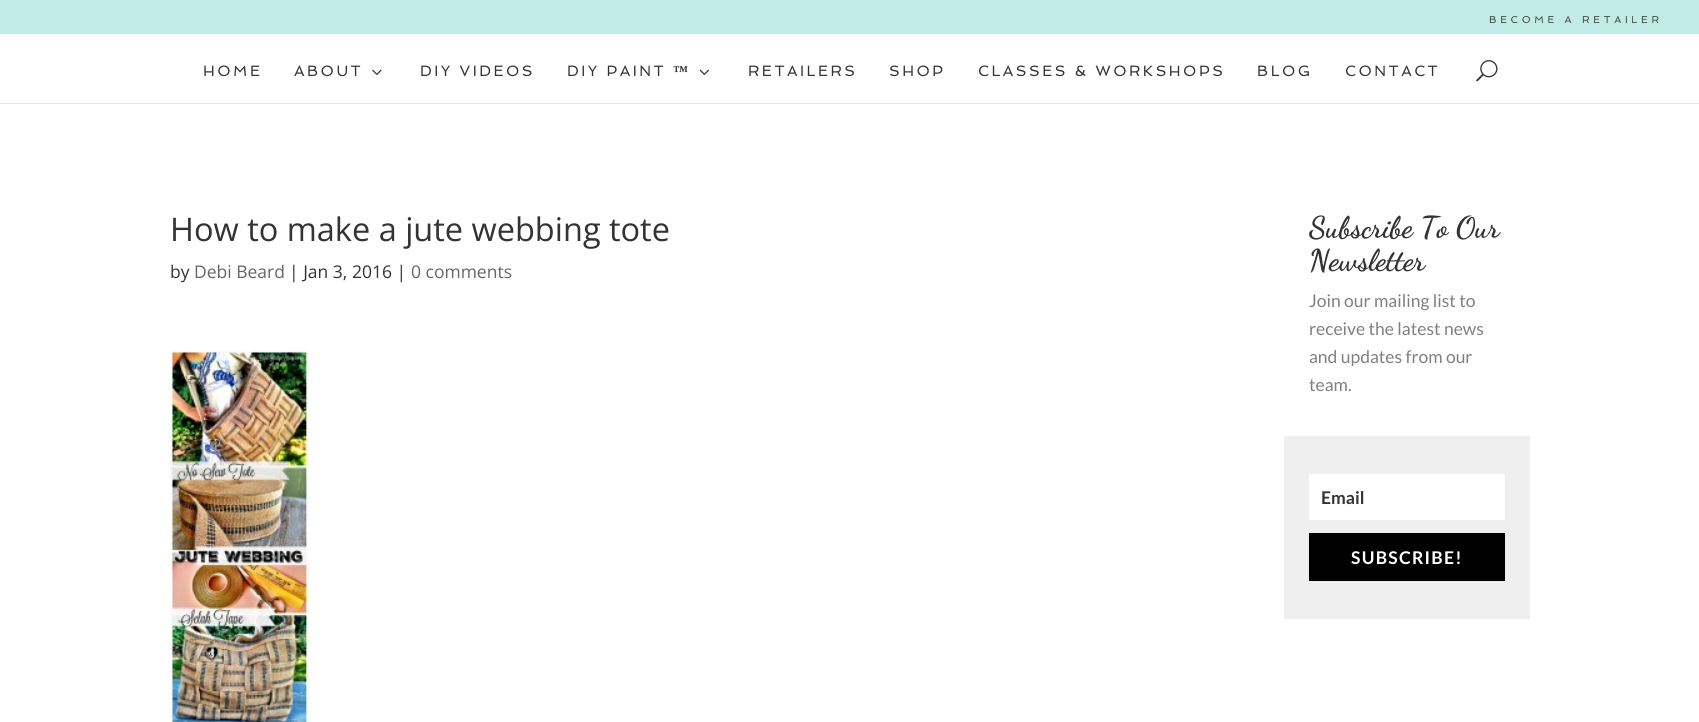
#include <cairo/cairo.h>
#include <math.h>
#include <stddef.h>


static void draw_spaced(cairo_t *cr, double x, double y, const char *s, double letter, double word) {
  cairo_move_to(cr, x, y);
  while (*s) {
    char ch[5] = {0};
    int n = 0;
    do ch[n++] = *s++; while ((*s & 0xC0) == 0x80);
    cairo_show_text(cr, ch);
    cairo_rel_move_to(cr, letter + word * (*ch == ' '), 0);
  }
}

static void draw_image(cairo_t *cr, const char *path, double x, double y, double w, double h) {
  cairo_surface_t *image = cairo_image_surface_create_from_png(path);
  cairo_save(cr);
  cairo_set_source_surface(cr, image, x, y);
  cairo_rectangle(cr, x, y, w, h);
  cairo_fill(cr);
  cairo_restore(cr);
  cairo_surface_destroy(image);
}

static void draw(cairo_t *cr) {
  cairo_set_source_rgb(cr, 1, 1, 1);
  cairo_paint(cr);
  cairo_set_source_rgb(cr, 193 / 255.0, 235 / 255.0, 231 / 255.0);
  cairo_rectangle(cr, 0, 0, 1699, 34);
  cairo_fill(cr);
  cairo_set_source_rgb(cr, 230 / 255.0, 230 / 255.0, 230 / 255.0);
  cairo_rectangle(cr, 0, 103, 1699, 1);
  cairo_fill(cr);
  draw_image(cr, "images/1.png", 372, 69, 10, 6);
  draw_image(cr, "images/2.png", 699, 69, 10, 6);
  draw_image(cr, "images/3.png", 1476, 60, 22, 22);
  draw_image(cr, "images/4.png", 170, 350, 139, 372);
  cairo_set_source_rgb(cr, 239 / 255.0, 239 / 255.0, 239 / 255.0);
  cairo_rectangle(cr, 1284, 436, 246, 183);
  cairo_fill(cr);
  cairo_set_source_rgb(cr, 1, 1, 1);
  cairo_rectangle(cr, 1309, 474, 196, 46);
  cairo_fill(cr);
  cairo_set_source_rgb(cr, 0, 0, 0);
  cairo_rectangle(cr, 1309, 533, 196, 48);
  cairo_fill(cr);
  cairo_select_font_face(cr, "Spinnaker", CAIRO_FONT_SLANT_NORMAL, CAIRO_FONT_WEIGHT_NORMAL);
  cairo_set_font_size(cr, 10);
  cairo_set_source_rgb(cr, 58 / 255.0, 71 / 255.0, 69 / 255.0);
  draw_spaced(cr, 1489, 23, "BECOME A RETAILER", 3.75, 0);
  cairo_set_font_size(cr, 15);
  cairo_set_source_rgb(cr, 51 / 255.0, 51 / 255.0, 51 / 255.0);
  draw_spaced(cr, 203, 76, "HOME", 2.5, 0);
  draw_spaced(cr, 294, 76, "ABOUT", 2.5, 0);
  draw_spaced(cr, 420, 76, "DIY VIDEOS", 2.5, 0);
  draw_spaced(cr, 567, 76, "DIY PAINT", 2.5, 0);
  cairo_select_font_face(cr, "Liberation Serif", CAIRO_FONT_SLANT_NORMAL, CAIRO_FONT_WEIGHT_BOLD);
  draw_spaced(cr, 673, 76, "™", 2.5, 0);
  cairo_select_font_face(cr, "Spinnaker", CAIRO_FONT_SLANT_NORMAL, CAIRO_FONT_WEIGHT_NORMAL);
  draw_spaced(cr, 748, 76, "RETAILERS", 2.5, 0);
  draw_spaced(cr, 889, 76, "SHOP", 2.5, 0);
  draw_spaced(cr, 978, 76, "CLASSES & WORKSHOPS", 2.5, 0);
  draw_spaced(cr, 1257, 76, "BLOG", 2.5, 0);
  draw_spaced(cr, 1345, 76, "CONTACT", 2.5, 0);
  cairo_select_font_face(cr, "Open Sans", CAIRO_FONT_SLANT_NORMAL, CAIRO_FONT_WEIGHT_NORMAL);
  cairo_set_font_size(cr, 32.5);
  cairo_move_to(cr, 170, 241);
  cairo_show_text(cr, "How to make a jute webbing tote");
  cairo_set_font_size(cr, 17.5);
  cairo_move_to(cr, 170, 278);
  cairo_show_text(cr, "by");
  cairo_set_source_rgb(cr, 102 / 255.0, 102 / 255.0, 102 / 255.0);
  cairo_move_to(cr, 194, 278);
  cairo_show_text(cr, "Debi Beard");
  cairo_set_source_rgb(cr, 51 / 255.0, 51 / 255.0, 51 / 255.0);
  cairo_move_to(cr, 289, 278);
  cairo_show_text(cr, "| Jan 3, 2016 |");
  cairo_set_source_rgb(cr, 102 / 255.0, 102 / 255.0, 102 / 255.0);
  cairo_move_to(cr, 411, 278);
  cairo_show_text(cr, "0 comments");
  cairo_select_font_face(cr, "Dancing Script", CAIRO_FONT_SLANT_NORMAL, CAIRO_FONT_WEIGHT_BOLD);
  cairo_set_font_size(cr, 30);
  cairo_set_source_rgb(cr, 51 / 255.0, 51 / 255.0, 51 / 255.0);
  cairo_move_to(cr, 1309, 237);
  cairo_show_text(cr, "Subscribe To Our");
  cairo_move_to(cr, 1309, 270);
  cairo_show_text(cr, "Newsletter");
  cairo_select_font_face(cr, "Lato", CAIRO_FONT_SLANT_NORMAL, CAIRO_FONT_WEIGHT_NORMAL);
  cairo_set_font_size(cr, 17.5);
  cairo_set_source_rgb(cr, 128 / 255.0, 128 / 255.0, 128 / 255.0);
  cairo_move_to(cr, 1309, 307);
  cairo_show_text(cr, "Join our mailing list to");
  cairo_move_to(cr, 1309, 335);
  cairo_show_text(cr, "receive the latest news");
  cairo_move_to(cr, 1309, 363);
  cairo_show_text(cr, "and updates from our");
  cairo_move_to(cr, 1309, 391);
  cairo_show_text(cr, "team.");
  cairo_select_font_face(cr, "Lato", CAIRO_FONT_SLANT_NORMAL, CAIRO_FONT_WEIGHT_BOLD);
  cairo_set_source_rgb(cr, 51 / 255.0, 51 / 255.0, 51 / 255.0);
  cairo_move_to(cr, 1321, 504);
  cairo_show_text(cr, "Email");
  cairo_set_source_rgb(cr, 1, 1, 1);
  draw_spaced(cr, 1351, 564, "SUBSCRIBE!", 1.25, 0);
}

int main(void) {
  cairo_surface_t *surface = cairo_image_surface_create(CAIRO_FORMAT_RGB24, 1699, 722);
  cairo_t *cr = cairo_create(surface);
  cairo_font_options_t *options = cairo_font_options_create();
  cairo_font_options_set_hint_metrics(options, CAIRO_HINT_METRICS_OFF);
  cairo_font_options_set_hint_style(options, CAIRO_HINT_STYLE_NONE);
  cairo_set_font_options(cr, options);
  cairo_set_miter_limit(cr, 4);
  draw(cr);
  cairo_surface_write_to_png(surface, "out.png");
  cairo_font_options_destroy(options);
  cairo_destroy(cr);
  cairo_surface_destroy(surface);
  return 0;
}
